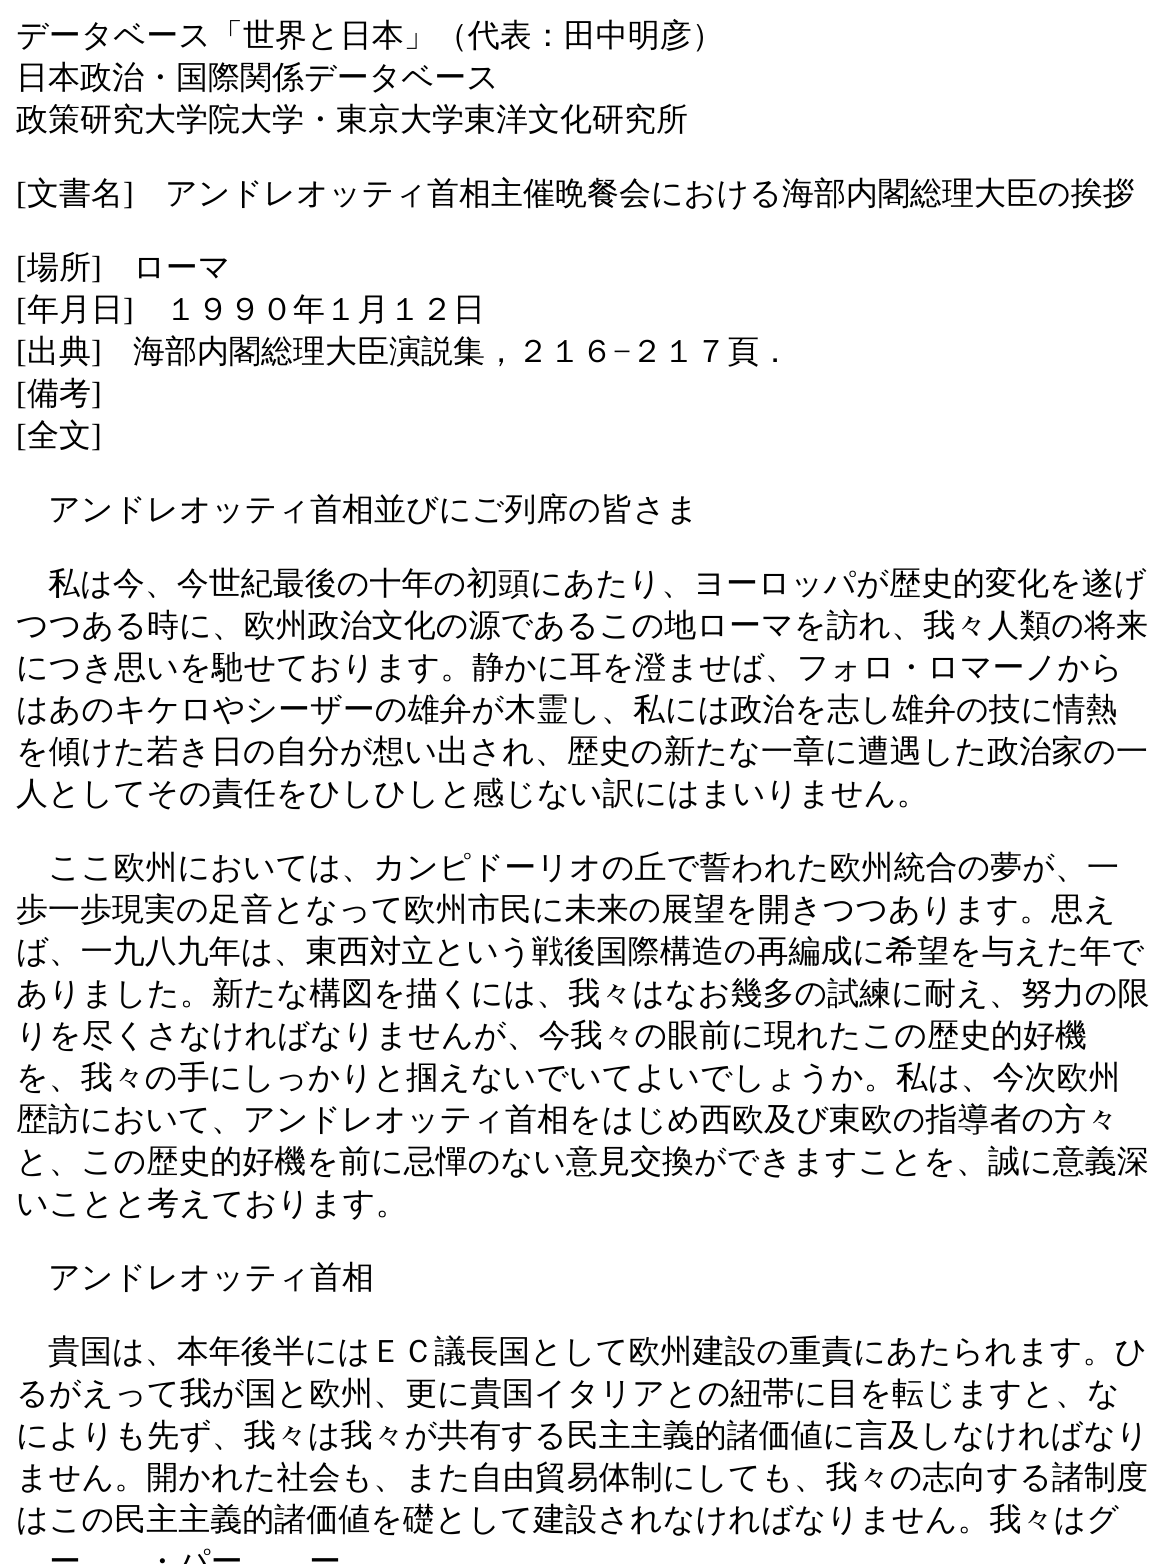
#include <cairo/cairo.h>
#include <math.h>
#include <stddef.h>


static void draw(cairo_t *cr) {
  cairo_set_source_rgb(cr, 1, 1, 1);
  cairo_paint(cr);
  cairo_select_font_face(cr, "WenQuanYi Zen Hei Medium", CAIRO_FONT_SLANT_NORMAL, CAIRO_FONT_WEIGHT_NORMAL);
  cairo_set_font_size(cr, 32);
  cairo_set_source_rgb(cr, 0, 0, 0);
  cairo_move_to(cr, 16, 46);
  cairo_show_text(cr, "データベース「世界と日本」（代表：田中明彦）");
  cairo_move_to(cr, 16, 88);
  cairo_show_text(cr, "日本政治・国際関係データベース");
  cairo_move_to(cr, 16, 130);
  cairo_show_text(cr, "政策研究大学院大学・東京大学東洋文化研究所");
  cairo_select_font_face(cr, "Liberation Serif", CAIRO_FONT_SLANT_NORMAL, CAIRO_FONT_WEIGHT_NORMAL);
  cairo_move_to(cr, 16, 204);
  cairo_show_text(cr, "[");
  cairo_select_font_face(cr, "WenQuanYi Zen Hei Medium", CAIRO_FONT_SLANT_NORMAL, CAIRO_FONT_WEIGHT_NORMAL);
  cairo_move_to(cr, 27, 204);
  cairo_show_text(cr, "文書名");
  cairo_select_font_face(cr, "Liberation Serif", CAIRO_FONT_SLANT_NORMAL, CAIRO_FONT_WEIGHT_NORMAL);
  cairo_move_to(cr, 123, 204);
  cairo_show_text(cr, "]");
  cairo_select_font_face(cr, "WenQuanYi Zen Hei Medium", CAIRO_FONT_SLANT_NORMAL, CAIRO_FONT_WEIGHT_NORMAL);
  cairo_move_to(cr, 165, 204);
  cairo_show_text(cr, "アンドレオッティ首相主催晩餐会における海部内閣総理大臣の挨拶");
  cairo_select_font_face(cr, "Liberation Serif", CAIRO_FONT_SLANT_NORMAL, CAIRO_FONT_WEIGHT_NORMAL);
  cairo_move_to(cr, 16, 278);
  cairo_show_text(cr, "[");
  cairo_select_font_face(cr, "WenQuanYi Zen Hei Medium", CAIRO_FONT_SLANT_NORMAL, CAIRO_FONT_WEIGHT_NORMAL);
  cairo_move_to(cr, 27, 278);
  cairo_show_text(cr, "場所");
  cairo_select_font_face(cr, "Liberation Serif", CAIRO_FONT_SLANT_NORMAL, CAIRO_FONT_WEIGHT_NORMAL);
  cairo_move_to(cr, 91, 278);
  cairo_show_text(cr, "]");
  cairo_select_font_face(cr, "WenQuanYi Zen Hei Medium", CAIRO_FONT_SLANT_NORMAL, CAIRO_FONT_WEIGHT_NORMAL);
  cairo_move_to(cr, 133, 278);
  cairo_show_text(cr, "ローマ");
  cairo_select_font_face(cr, "Liberation Serif", CAIRO_FONT_SLANT_NORMAL, CAIRO_FONT_WEIGHT_NORMAL);
  cairo_move_to(cr, 16, 320);
  cairo_show_text(cr, "[");
  cairo_select_font_face(cr, "WenQuanYi Zen Hei Medium", CAIRO_FONT_SLANT_NORMAL, CAIRO_FONT_WEIGHT_NORMAL);
  cairo_move_to(cr, 27, 320);
  cairo_show_text(cr, "年月日");
  cairo_select_font_face(cr, "Liberation Serif", CAIRO_FONT_SLANT_NORMAL, CAIRO_FONT_WEIGHT_NORMAL);
  cairo_move_to(cr, 123, 320);
  cairo_show_text(cr, "]");
  cairo_select_font_face(cr, "WenQuanYi Zen Hei Medium", CAIRO_FONT_SLANT_NORMAL, CAIRO_FONT_WEIGHT_NORMAL);
  cairo_move_to(cr, 165, 320);
  cairo_show_text(cr, "１９９０年１月１２日");
  cairo_select_font_face(cr, "Liberation Serif", CAIRO_FONT_SLANT_NORMAL, CAIRO_FONT_WEIGHT_NORMAL);
  cairo_move_to(cr, 16, 362);
  cairo_show_text(cr, "[");
  cairo_select_font_face(cr, "WenQuanYi Zen Hei Medium", CAIRO_FONT_SLANT_NORMAL, CAIRO_FONT_WEIGHT_NORMAL);
  cairo_move_to(cr, 27, 362);
  cairo_show_text(cr, "出典");
  cairo_select_font_face(cr, "Liberation Serif", CAIRO_FONT_SLANT_NORMAL, CAIRO_FONT_WEIGHT_NORMAL);
  cairo_move_to(cr, 91, 362);
  cairo_show_text(cr, "]");
  cairo_select_font_face(cr, "WenQuanYi Zen Hei Medium", CAIRO_FONT_SLANT_NORMAL, CAIRO_FONT_WEIGHT_NORMAL);
  cairo_move_to(cr, 133, 362);
  cairo_show_text(cr, "海部内閣総理大臣演説集，２１６");
  cairo_select_font_face(cr, "Liberation Serif", CAIRO_FONT_SLANT_NORMAL, CAIRO_FONT_WEIGHT_NORMAL);
  cairo_move_to(cr, 613, 362);
  cairo_show_text(cr, "−");
  cairo_select_font_face(cr, "WenQuanYi Zen Hei Medium", CAIRO_FONT_SLANT_NORMAL, CAIRO_FONT_WEIGHT_NORMAL);
  cairo_move_to(cr, 631, 362);
  cairo_show_text(cr, "２１７頁．");
  cairo_select_font_face(cr, "Liberation Serif", CAIRO_FONT_SLANT_NORMAL, CAIRO_FONT_WEIGHT_NORMAL);
  cairo_move_to(cr, 16, 404);
  cairo_show_text(cr, "[");
  cairo_select_font_face(cr, "WenQuanYi Zen Hei Medium", CAIRO_FONT_SLANT_NORMAL, CAIRO_FONT_WEIGHT_NORMAL);
  cairo_move_to(cr, 27, 404);
  cairo_show_text(cr, "備考");
  cairo_select_font_face(cr, "Liberation Serif", CAIRO_FONT_SLANT_NORMAL, CAIRO_FONT_WEIGHT_NORMAL);
  cairo_move_to(cr, 91, 404);
  cairo_show_text(cr, "]");
  cairo_move_to(cr, 16, 446);
  cairo_show_text(cr, "[");
  cairo_select_font_face(cr, "WenQuanYi Zen Hei Medium", CAIRO_FONT_SLANT_NORMAL, CAIRO_FONT_WEIGHT_NORMAL);
  cairo_move_to(cr, 27, 446);
  cairo_show_text(cr, "全文");
  cairo_select_font_face(cr, "Liberation Serif", CAIRO_FONT_SLANT_NORMAL, CAIRO_FONT_WEIGHT_NORMAL);
  cairo_move_to(cr, 91, 446);
  cairo_show_text(cr, "]");
  cairo_select_font_face(cr, "WenQuanYi Zen Hei Medium", CAIRO_FONT_SLANT_NORMAL, CAIRO_FONT_WEIGHT_NORMAL);
  cairo_move_to(cr, 48, 520);
  cairo_show_text(cr, "アンドレオッティ首相並びにご列席の皆さま");
  cairo_move_to(cr, 48, 594);
  cairo_show_text(cr, "私は今、今世紀最後の十年の初頭にあたり、ヨーロッパが歴史的変化を遂げ");
  cairo_move_to(cr, 16, 636);
  cairo_show_text(cr, "つつある時に、欧州政治文化の源であるこの地ローマを訪れ、我々人類の将来");
  cairo_move_to(cr, 16, 678);
  cairo_show_text(cr, "につき思いを馳せております。静かに耳を澄ませば、フォロ・ロマーノから");
  cairo_move_to(cr, 16, 720);
  cairo_show_text(cr, "はあのキケロやシーザーの雄弁が木霊し、私には政治を志し雄弁の技に情熱");
  cairo_move_to(cr, 16, 762);
  cairo_show_text(cr, "を傾けた若き日の自分が想い出され、歴史の新たな一章に遭遇した政治家の一");
  cairo_move_to(cr, 16, 804);
  cairo_show_text(cr, "人としてその責任をひしひしと感じない訳にはまいりません。");
  cairo_move_to(cr, 48, 878);
  cairo_show_text(cr, "ここ欧州においては、カンピドーリオの丘で誓われた欧州統合の夢が、一");
  cairo_move_to(cr, 16, 920);
  cairo_show_text(cr, "歩一歩現実の足音となって欧州市民に未来の展望を開きつつあります。思え");
  cairo_move_to(cr, 16, 962);
  cairo_show_text(cr, "ば、一九八九年は、東西対立という戦後国際構造の再編成に希望を与えた年で");
  cairo_move_to(cr, 16, 1004);
  cairo_show_text(cr, "ありました。新たな構図を描くには、我々はなお幾多の試練に耐え、努力の限");
  cairo_move_to(cr, 16, 1046);
  cairo_show_text(cr, "りを尽くさなければなりませんが、今我々の眼前に現れたこの歴史的好機");
  cairo_move_to(cr, 16, 1088);
  cairo_show_text(cr, "を、我々の手にしっかりと掴えないでいてよいでしょうか。私は、今次欧州");
  cairo_move_to(cr, 16, 1130);
  cairo_show_text(cr, "歴訪において、アンドレオッティ首相をはじめ西欧及び東欧の指導者の方々");
  cairo_move_to(cr, 16, 1172);
  cairo_show_text(cr, "と、この歴史的好機を前に忌憚のない意見交換ができますことを、誠に意義深");
  cairo_move_to(cr, 16, 1214);
  cairo_show_text(cr, "いことと考えております。");
  cairo_move_to(cr, 48, 1288);
  cairo_show_text(cr, "アンドレオッティ首相");
  cairo_move_to(cr, 48, 1362);
  cairo_show_text(cr, "貴国は、本年後半にはＥＣ議長国として欧州建設の重責にあたられます。ひ");
  cairo_move_to(cr, 16, 1404);
  cairo_show_text(cr, "るがえって我が国と欧州、更に貴国イタリアとの紐帯に目を転じますと、な");
  cairo_move_to(cr, 16, 1446);
  cairo_show_text(cr, "によりも先ず、我々は我々が共有する民主主義的諸価値に言及しなければなり");
  cairo_move_to(cr, 16, 1488);
  cairo_show_text(cr, "ません。開かれた社会も、また自由貿易体制にしても、我々の志向する諸制度");
  cairo_move_to(cr, 16, 1530);
  cairo_show_text(cr, "はこの民主主義的諸価値を礎として建設されなければなりません。我々はグ");
  cairo_move_to(cr, 49, 1572);
  cairo_show_text(cr, "ー");
  cairo_move_to(cr, 146, 1572);
  cairo_show_text(cr, "・パー");
  cairo_move_to(cr, 309, 1572);
  cairo_show_text(cr, "ー");
}

int main(void) {
  cairo_surface_t *surface = cairo_image_surface_create(CAIRO_FORMAT_RGB24, 1166, 1564);
  cairo_t *cr = cairo_create(surface);
  cairo_font_options_t *options = cairo_font_options_create();
  cairo_font_options_set_hint_metrics(options, CAIRO_HINT_METRICS_OFF);
  cairo_font_options_set_hint_style(options, CAIRO_HINT_STYLE_NONE);
  cairo_set_font_options(cr, options);
  cairo_set_miter_limit(cr, 4);
  draw(cr);
  cairo_surface_write_to_png(surface, "out.png");
  cairo_font_options_destroy(options);
  cairo_destroy(cr);
  cairo_surface_destroy(surface);
  return 0;
}
